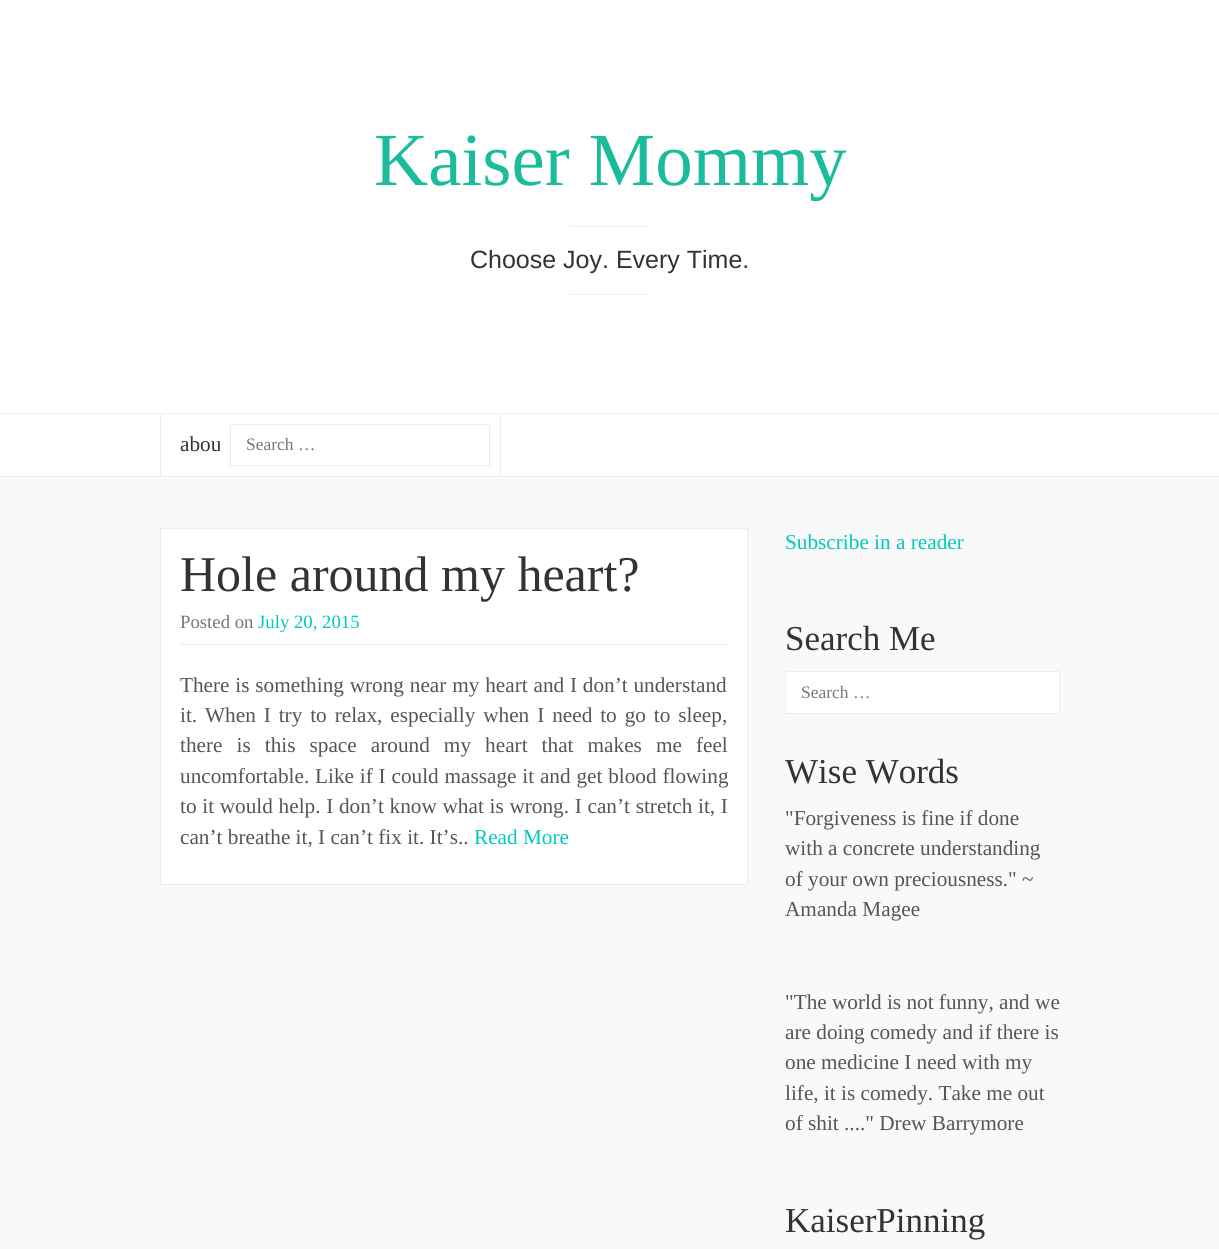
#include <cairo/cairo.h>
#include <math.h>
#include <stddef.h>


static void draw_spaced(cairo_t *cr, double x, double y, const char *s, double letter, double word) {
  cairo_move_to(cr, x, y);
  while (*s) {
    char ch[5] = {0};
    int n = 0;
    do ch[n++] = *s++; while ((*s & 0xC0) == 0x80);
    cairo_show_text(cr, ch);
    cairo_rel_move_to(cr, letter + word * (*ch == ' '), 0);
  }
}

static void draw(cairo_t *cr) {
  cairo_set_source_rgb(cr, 249 / 255.0, 249 / 255.0, 249 / 255.0);
  cairo_paint(cr);
  cairo_set_source_rgb(cr, 1, 1, 1);
  cairo_rectangle(cr, 0, 0, 1219, 478);
  cairo_fill(cr);
  cairo_set_source_rgb(cr, 236 / 255.0, 236 / 255.0, 236 / 255.0);
  cairo_rectangle(cr, 570, 226, 80, 1);
  cairo_fill(cr);
  cairo_rectangle(cr, 570, 294, 80, 1);
  cairo_fill(cr);
  cairo_rectangle(cr, 0, 413, 1219, 1);
  cairo_fill(cr);
  cairo_rectangle(cr, 0, 476, 1219, 1);
  cairo_fill(cr);
  cairo_rectangle(cr, 160, 414, 1, 62);
  cairo_fill(cr);
  cairo_rectangle(cr, 500, 414, 1, 62);
  cairo_fill(cr);
  cairo_rectangle(cr, 230.5, 424.5, 259, 41);
  cairo_set_line_width(cr, 1);
  cairo_stroke(cr);
  cairo_set_source_rgb(cr, 1, 1, 1);
  cairo_rectangle(cr, 160.5, 528.5, 587, 356);
  cairo_fill_preserve(cr);
  cairo_set_source_rgb(cr, 236 / 255.0, 236 / 255.0, 236 / 255.0);
  cairo_stroke(cr);
  cairo_rectangle(cr, 180, 644, 548, 1);
  cairo_fill(cr);
  cairo_set_source_rgb(cr, 1, 1, 1);
  cairo_rectangle(cr, 785.5, 671.5, 274, 42);
  cairo_fill_preserve(cr);
  cairo_set_source_rgb(cr, 236 / 255.0, 236 / 255.0, 236 / 255.0);
  cairo_stroke(cr);
  cairo_select_font_face(cr, "Liberation Serif", CAIRO_FONT_SLANT_NORMAL, CAIRO_FONT_WEIGHT_NORMAL);
  cairo_set_font_size(cr, 75);
  cairo_set_source_rgb(cr, 26 / 255.0, 188 / 255.0, 156 / 255.0);
  cairo_move_to(cr, 374, 185);
  cairo_show_text(cr, "Kaiser Mommy");
  cairo_select_font_face(cr, "Liberation Sans", CAIRO_FONT_SLANT_NORMAL, CAIRO_FONT_WEIGHT_NORMAL);
  cairo_set_font_size(cr, 25);
  cairo_set_source_rgb(cr, 51 / 255.0, 51 / 255.0, 51 / 255.0);
  cairo_move_to(cr, 470, 268);
  cairo_show_text(cr, "Choose Joy. Every Time.");
  cairo_select_font_face(cr, "Liberation Serif", CAIRO_FONT_SLANT_NORMAL, CAIRO_FONT_WEIGHT_NORMAL);
  cairo_set_font_size(cr, 21.25);
  cairo_move_to(cr, 180, 451);
  cairo_show_text(cr, "abou");
  cairo_set_source_rgb(cr, 1, 1, 1);
  cairo_rectangle(cr, 220, 450, 1, 1);
  cairo_fill(cr);
  cairo_set_font_size(cr, 17.5);
  cairo_set_source_rgb(cr, 119 / 255.0, 119 / 255.0, 119 / 255.0);
  cairo_move_to(cr, 246, 450);
  cairo_show_text(cr, "Search …");
  cairo_set_font_size(cr, 50);
  cairo_set_source_rgb(cr, 51 / 255.0, 51 / 255.0, 51 / 255.0);
  cairo_move_to(cr, 180, 591);
  cairo_show_text(cr, "Hole around my heart?");
  cairo_set_font_size(cr, 18.75);
  cairo_set_source_rgb(cr, 119 / 255.0, 119 / 255.0, 119 / 255.0);
  cairo_move_to(cr, 180, 628);
  cairo_show_text(cr, "Posted on");
  cairo_set_source_rgb(cr, 0, 201 / 255.0, 191 / 255.0);
  cairo_move_to(cr, 258, 628);
  cairo_show_text(cr, "July 20, 2015");
  cairo_set_font_size(cr, 21.25);
  cairo_set_source_rgb(cr, 85 / 255.0, 85 / 255.0, 85 / 255.0);
  draw_spaced(cr, 180, 692, "There is something wrong near my heart and I don’t understand", 0, 0.5);
  draw_spaced(cr, 180, 722, "it. When I try to relax, especially when I need to go to sleep,", 0, 2.6);
  draw_spaced(cr, 180, 752, "there is this space around my heart that makes me feel", 0, 8.75);
  draw_spaced(cr, 180, 783, "uncomfortable. Like if I could massage it and get blood flowing", 0, 0.5);
  draw_spaced(cr, 180, 813, "to it would help. I don’t know what is wrong. I can’t stretch it, I", 0, 0.4);
  cairo_move_to(cr, 180, 844);
  cairo_show_text(cr, "can’t breathe it, I can’t fix it. It’s..");
  cairo_set_source_rgb(cr, 0, 201 / 255.0, 191 / 255.0);
  cairo_move_to(cr, 474, 844);
  cairo_show_text(cr, "Read More");
  cairo_move_to(cr, 785, 549);
  cairo_show_text(cr, "Subscribe in a reader");
  cairo_set_font_size(cr, 35);
  cairo_set_source_rgb(cr, 51 / 255.0, 51 / 255.0, 51 / 255.0);
  cairo_move_to(cr, 785, 650);
  cairo_show_text(cr, "Search Me");
  cairo_set_font_size(cr, 17.5);
  cairo_set_source_rgb(cr, 119 / 255.0, 119 / 255.0, 119 / 255.0);
  cairo_move_to(cr, 801, 698);
  cairo_show_text(cr, "Search …");
  cairo_set_font_size(cr, 35);
  cairo_set_source_rgb(cr, 51 / 255.0, 51 / 255.0, 51 / 255.0);
  cairo_move_to(cr, 785, 783);
  cairo_show_text(cr, "Wise Words");
  cairo_set_font_size(cr, 21.25);
  cairo_set_source_rgb(cr, 85 / 255.0, 85 / 255.0, 85 / 255.0);
  cairo_move_to(cr, 785, 825);
  cairo_show_text(cr, "\"Forgiveness is fine if done");
  cairo_move_to(cr, 785, 855);
  cairo_show_text(cr, "with a concrete understanding");
  cairo_move_to(cr, 785, 886);
  cairo_show_text(cr, "of your own preciousness.\" ~");
  cairo_move_to(cr, 785, 916);
  cairo_show_text(cr, "Amanda Magee");
  cairo_move_to(cr, 785, 1009);
  cairo_show_text(cr, "\"The world is not funny, and we");
  cairo_move_to(cr, 785, 1039);
  cairo_show_text(cr, "are doing comedy and if there is");
  cairo_move_to(cr, 785, 1069);
  cairo_show_text(cr, "one medicine I need with my");
  cairo_move_to(cr, 785, 1100);
  cairo_show_text(cr, "life, it is comedy. Take me out");
  cairo_move_to(cr, 785, 1130);
  cairo_show_text(cr, "of shit ....\" Drew Barrymore");
  cairo_set_font_size(cr, 35);
  cairo_set_source_rgb(cr, 51 / 255.0, 51 / 255.0, 51 / 255.0);
  cairo_move_to(cr, 785, 1232);
  cairo_show_text(cr, "KaiserPinning");
}

int main(void) {
  cairo_surface_t *surface = cairo_image_surface_create(CAIRO_FORMAT_RGB24, 1219, 1249);
  cairo_t *cr = cairo_create(surface);
  cairo_font_options_t *options = cairo_font_options_create();
  cairo_font_options_set_hint_metrics(options, CAIRO_HINT_METRICS_OFF);
  cairo_font_options_set_hint_style(options, CAIRO_HINT_STYLE_NONE);
  cairo_set_font_options(cr, options);
  cairo_set_miter_limit(cr, 4);
  draw(cr);
  cairo_surface_write_to_png(surface, "out.png");
  cairo_font_options_destroy(options);
  cairo_destroy(cr);
  cairo_surface_destroy(surface);
  return 0;
}
